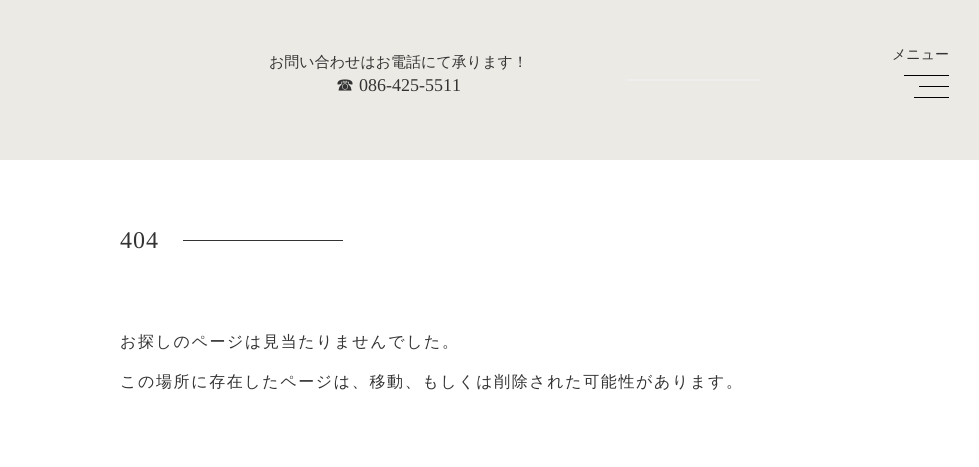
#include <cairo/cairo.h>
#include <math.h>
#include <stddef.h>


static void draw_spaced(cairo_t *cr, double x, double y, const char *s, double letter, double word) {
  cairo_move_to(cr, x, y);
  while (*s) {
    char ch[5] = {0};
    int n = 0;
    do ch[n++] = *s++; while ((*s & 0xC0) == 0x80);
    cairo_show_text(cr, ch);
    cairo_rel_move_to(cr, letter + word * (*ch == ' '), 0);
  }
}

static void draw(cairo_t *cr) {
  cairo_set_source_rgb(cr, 1, 1, 1);
  cairo_paint(cr);
  cairo_set_source_rgb(cr, 236 / 255.0, 234 / 255.0, 229 / 255.0);
  cairo_rectangle(cr, 0, 0, 979, 160);
  cairo_fill(cr);
  cairo_set_source_rgb(cr, 238 / 255.0, 238 / 255.0, 238 / 255.0);
  cairo_rectangle(cr, 626, 79, 134, 2);
  cairo_fill(cr);
  cairo_set_source_rgb(cr, 0, 0, 0);
  cairo_rectangle(cr, 904, 75, 45, 1);
  cairo_fill(cr);
  cairo_rectangle(cr, 919, 86, 30, 1);
  cairo_fill(cr);
  cairo_rectangle(cr, 914, 97, 35, 1);
  cairo_fill(cr);
  cairo_set_source_rgb(cr, 51 / 255.0, 51 / 255.0, 51 / 255.0);
  cairo_rectangle(cr, 183, 240, 160, 1);
  cairo_fill(cr);
  cairo_select_font_face(cr, "WenQuanYi Zen Hei Medium", CAIRO_FONT_SLANT_NORMAL, CAIRO_FONT_WEIGHT_NORMAL);
  cairo_set_font_size(cr, 15);
  cairo_move_to(cr, 269, 67);
  cairo_show_text(cr, "お問い合わせはお電話にて承ります！");
  cairo_set_font_size(cr, 18);
  cairo_move_to(cr, 336, 91);
  cairo_show_text(cr, "☎");
  cairo_select_font_face(cr, "Liberation Serif", CAIRO_FONT_SLANT_NORMAL, CAIRO_FONT_WEIGHT_NORMAL);
  cairo_move_to(cr, 359, 91);
  cairo_show_text(cr, "086-425-5511");
  cairo_select_font_face(cr, "WenQuanYi Zen Hei Medium", CAIRO_FONT_SLANT_NORMAL, CAIRO_FONT_WEIGHT_NORMAL);
  cairo_set_font_size(cr, 14);
  cairo_move_to(cr, 892, 59);
  cairo_show_text(cr, "メニュー");
  cairo_select_font_face(cr, "Liberation Serif", CAIRO_FONT_SLANT_NORMAL, CAIRO_FONT_WEIGHT_NORMAL);
  cairo_set_font_size(cr, 24);
  draw_spaced(cr, 120, 248, "404", 1, 0);
  cairo_select_font_face(cr, "WenQuanYi Zen Hei Medium", CAIRO_FONT_SLANT_NORMAL, CAIRO_FONT_WEIGHT_NORMAL);
  cairo_set_font_size(cr, 16);
  draw_spaced(cr, 120, 347, "お探しのページは見当たりませんでした。", 1.6, 0);
  draw_spaced(cr, 120, 387, "この場所に存在したページは、移動、もしくは削除された可能性があります。", 1.6, 0);
}

int main(void) {
  cairo_surface_t *surface = cairo_image_surface_create(CAIRO_FORMAT_RGB24, 979, 467);
  cairo_t *cr = cairo_create(surface);
  cairo_font_options_t *options = cairo_font_options_create();
  cairo_font_options_set_hint_metrics(options, CAIRO_HINT_METRICS_OFF);
  cairo_font_options_set_hint_style(options, CAIRO_HINT_STYLE_NONE);
  cairo_set_font_options(cr, options);
  cairo_set_miter_limit(cr, 4);
  draw(cr);
  cairo_surface_write_to_png(surface, "out.png");
  cairo_font_options_destroy(options);
  cairo_destroy(cr);
  cairo_surface_destroy(surface);
  return 0;
}
